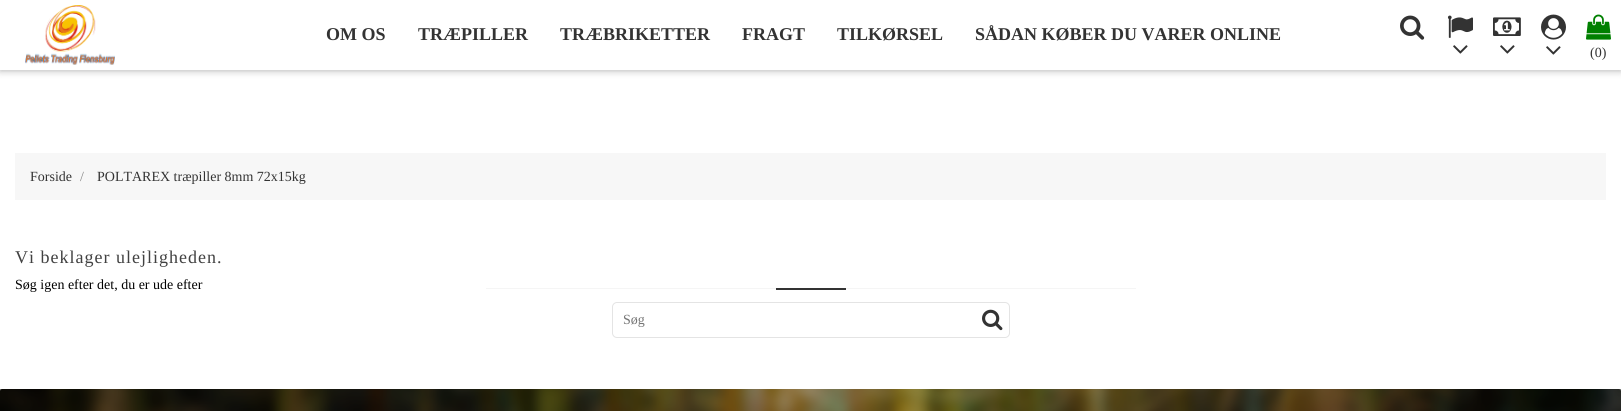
#include <cairo/cairo.h>
#include <math.h>
#include <stddef.h>


static void draw_spaced(cairo_t *cr, double x, double y, const char *s, double letter, double word) {
  cairo_move_to(cr, x, y);
  while (*s) {
    char ch[5] = {0};
    int n = 0;
    do ch[n++] = *s++; while ((*s & 0xC0) == 0x80);
    cairo_show_text(cr, ch);
    cairo_rel_move_to(cr, letter + word * (*ch == ' '), 0);
  }
}

static void rounded_rect(cairo_t *cr, double x, double y, double w, double h, double r) {
  cairo_new_sub_path(cr);
  cairo_arc(cr, x + w - r, y + h - r, r, 0, M_PI / 2);
  cairo_arc(cr, x + r, y + h - r, r, M_PI / 2, M_PI);
  cairo_arc(cr, x + r, y + r, r, M_PI, 1.5 * M_PI);
  cairo_arc(cr, x + w - r, y + r, r, 1.5 * M_PI, 2 * M_PI);
  cairo_close_path(cr);
}

static void draw_shadow(cairo_t *cr, double x, double y, double w, double h, double r, double blur, double alpha) {
  cairo_push_group_with_content(cr, CAIRO_CONTENT_ALPHA);
  cairo_set_operator(cr, CAIRO_OPERATOR_SOURCE);
  for (int i = 15; i >= -15 && fmin(w, h) + blur * i / 3 > 0; i -= 2) {
    double e = blur * i / 6;
    cairo_set_source_rgba(cr, 0, 0, 0, alpha * erfc((i - 1) / 8.5) / 2);
    rounded_rect(cr, x - e, y - e, w + 2 * e, h + 2 * e, fmax(0, fmin(r + e + blur * .6, fmin(w, h) / 2 + e)));
    cairo_fill(cr);
  }
  cairo_pattern_t *soft = cairo_pop_group(cr);
  cairo_mask(cr, soft);
  cairo_pattern_destroy(soft);
}

static void draw_image(cairo_t *cr, const char *path, double x, double y, double w, double h) {
  cairo_surface_t *image = cairo_image_surface_create_from_png(path);
  cairo_save(cr);
  cairo_set_source_surface(cr, image, x, y);
  cairo_rectangle(cr, x, y, w, h);
  cairo_fill(cr);
  cairo_restore(cr);
  cairo_surface_destroy(image);
}

static void draw(cairo_t *cr) {
  cairo_set_source_rgb(cr, 1, 1, 1);
  cairo_paint(cr);
  cairo_set_source_rgb(cr, 166 / 255.0, 166 / 255.0, 166 / 255.0);
  cairo_rectangle(cr, 0, 389, 1621, 2);
  cairo_fill(cr);
  cairo_set_source_rgb(cr, 0, 0, 0);
  draw_shadow(cr, 0, 0, 1621, 70, 0, 4, 0.35);
  cairo_set_source_rgb(cr, 1, 1, 1);
  cairo_rectangle(cr, 0, 0, 1621, 70);
  cairo_fill(cr);
  draw_image(cr, "images/1.png", 25, 5, 90, 60);
  draw_image(cr, "images/2.png", 1400, 15, 25, 25);
  draw_image(cr, "images/3.png", 1447, 15, 26, 23);
  draw_image(cr, "images/4.png", 1453, 45, 15, 9);
  draw_image(cr, "images/5.png", 1493, 17, 28, 19);
  draw_image(cr, "images/4.png", 1500, 45, 15, 9);
  draw_image(cr, "images/6.png", 1541, 14, 25, 26);
  draw_image(cr, "images/4.png", 1546, 46, 15, 9);
  draw_image(cr, "images/7.png", 1586, 14, 25, 26);
  cairo_set_source_rgb(cr, 247 / 255.0, 247 / 255.0, 247 / 255.0);
  cairo_rectangle(cr, 15, 153, 1591, 47);
  cairo_fill(cr);
  rounded_rect(cr, 612.5, 302.5, 397, 35, 4.5);
  cairo_set_source_rgb(cr, 228 / 255.0, 228 / 255.0, 228 / 255.0);
  cairo_set_line_width(cr, 1);
  cairo_stroke(cr);
  draw_image(cr, "images/8.png", 982, 309, 21, 22);
  cairo_set_source_rgb(cr, 245 / 255.0, 245 / 255.0, 245 / 255.0);
  cairo_rectangle(cr, 486, 288, 650, 1);
  cairo_fill(cr);
  cairo_set_source_rgb(cr, 51 / 255.0, 51 / 255.0, 51 / 255.0);
  cairo_rectangle(cr, 776, 288, 70, 2);
  cairo_fill(cr);
  draw_image(cr, "images/9.png", 0, 389, 1621, 22);
  cairo_select_font_face(cr, "Liberation Serif", CAIRO_FONT_SLANT_NORMAL, CAIRO_FONT_WEIGHT_BOLD);
  cairo_set_font_size(cr, 18);
  cairo_move_to(cr, 326, 40);
  cairo_show_text(cr, "OM OS");
  cairo_move_to(cr, 418, 40);
  cairo_show_text(cr, "TRÆPILLER");
  cairo_move_to(cr, 560, 40);
  cairo_show_text(cr, "TRÆBRIKETTER");
  cairo_move_to(cr, 742, 40);
  cairo_show_text(cr, "FRAGT");
  cairo_move_to(cr, 837, 40);
  cairo_show_text(cr, "TILKØRSEL");
  cairo_move_to(cr, 975, 40);
  cairo_show_text(cr, "SÅDAN KØBER DU VARER ONLINE");
  cairo_select_font_face(cr, "Liberation Serif", CAIRO_FONT_SLANT_NORMAL, CAIRO_FONT_WEIGHT_NORMAL);
  cairo_set_font_size(cr, 14);
  cairo_move_to(cr, 1590, 57);
  cairo_show_text(cr, "(0)");
  cairo_move_to(cr, 30, 181);
  cairo_show_text(cr, "Forside");
  cairo_set_source_rgb(cr, 135 / 255.0, 135 / 255.0, 135 / 255.0);
  cairo_move_to(cr, 80, 181);
  cairo_show_text(cr, "/");
  cairo_set_source_rgb(cr, 51 / 255.0, 51 / 255.0, 51 / 255.0);
  cairo_move_to(cr, 97, 181);
  cairo_show_text(cr, "POLTAREX træpiller 8mm 72x15kg");
  cairo_set_font_size(cr, 18);
  cairo_set_source_rgb(cr, 65 / 255.0, 65 / 255.0, 65 / 255.0);
  draw_spaced(cr, 15, 263, "Vi beklager ulejligheden.", 1, 0);
  cairo_set_font_size(cr, 14);
  cairo_set_source_rgb(cr, 0, 0, 0);
  cairo_move_to(cr, 15, 289);
  cairo_show_text(cr, "Søg igen efter det, du er ude efter");
  cairo_set_source_rgb(cr, 117 / 255.0, 117 / 255.0, 117 / 255.0);
  cairo_move_to(cr, 623, 324);
  cairo_show_text(cr, "Søg");
}

int main(void) {
  cairo_surface_t *surface = cairo_image_surface_create(CAIRO_FORMAT_RGB24, 1621, 411);
  cairo_t *cr = cairo_create(surface);
  cairo_font_options_t *options = cairo_font_options_create();
  cairo_font_options_set_hint_metrics(options, CAIRO_HINT_METRICS_OFF);
  cairo_font_options_set_hint_style(options, CAIRO_HINT_STYLE_NONE);
  cairo_set_font_options(cr, options);
  cairo_set_miter_limit(cr, 4);
  draw(cr);
  cairo_surface_write_to_png(surface, "out.png");
  cairo_font_options_destroy(options);
  cairo_destroy(cr);
  cairo_surface_destroy(surface);
  return 0;
}
